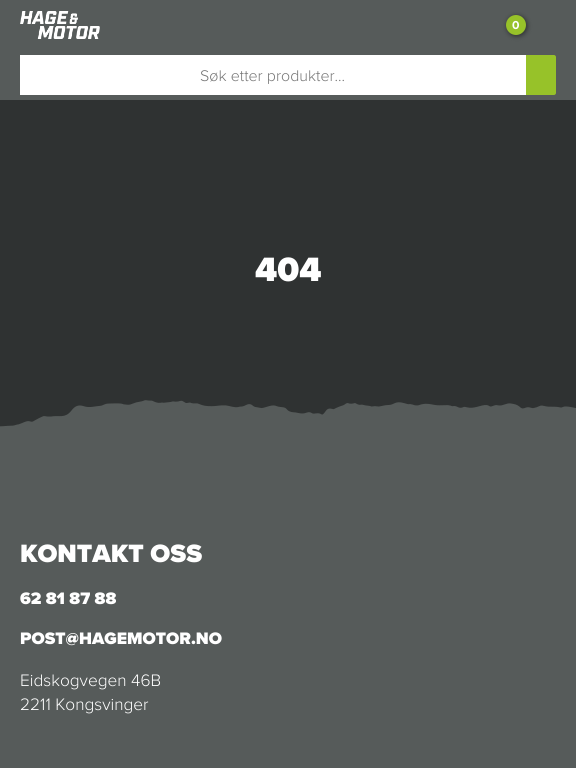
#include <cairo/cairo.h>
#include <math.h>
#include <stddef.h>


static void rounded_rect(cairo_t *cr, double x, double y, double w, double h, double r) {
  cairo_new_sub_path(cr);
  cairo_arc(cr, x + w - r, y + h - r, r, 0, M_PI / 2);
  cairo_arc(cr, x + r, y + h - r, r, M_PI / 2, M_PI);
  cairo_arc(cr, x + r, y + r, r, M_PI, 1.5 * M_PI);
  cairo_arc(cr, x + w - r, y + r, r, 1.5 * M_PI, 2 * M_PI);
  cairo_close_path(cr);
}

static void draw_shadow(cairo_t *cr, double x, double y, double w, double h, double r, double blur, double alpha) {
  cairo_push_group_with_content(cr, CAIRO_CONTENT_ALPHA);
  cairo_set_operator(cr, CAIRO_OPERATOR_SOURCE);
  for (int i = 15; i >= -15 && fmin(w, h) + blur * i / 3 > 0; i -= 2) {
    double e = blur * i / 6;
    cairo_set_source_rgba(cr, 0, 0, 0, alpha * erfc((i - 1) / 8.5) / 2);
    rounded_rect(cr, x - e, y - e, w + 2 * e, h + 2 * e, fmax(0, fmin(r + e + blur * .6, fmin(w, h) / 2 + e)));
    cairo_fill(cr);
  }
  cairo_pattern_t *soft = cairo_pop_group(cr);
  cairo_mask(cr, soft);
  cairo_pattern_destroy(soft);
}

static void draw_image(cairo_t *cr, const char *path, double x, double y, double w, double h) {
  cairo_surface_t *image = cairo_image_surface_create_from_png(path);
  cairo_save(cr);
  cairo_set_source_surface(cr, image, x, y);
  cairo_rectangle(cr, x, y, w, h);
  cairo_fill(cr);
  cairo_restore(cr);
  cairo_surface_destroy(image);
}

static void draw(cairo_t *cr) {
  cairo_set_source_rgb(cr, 47 / 255.0, 50 / 255.0, 50 / 255.0);
  cairo_paint(cr);
  cairo_set_source_rgb(cr, 86 / 255.0, 91 / 255.0, 90 / 255.0);
  cairo_rectangle(cr, 0, 0, 576, 100);
  cairo_fill(cr);
  draw_image(cr, "images/1.png", 20, 11, 80, 28);
  cairo_set_source_rgb(cr, 0, 0, 0);
  draw_shadow(cr, 507, 16, 20, 20, 10, 2.5, 0.5);
  cairo_set_source_rgb(cr, 151 / 255.0, 194 / 255.0, 41 / 255.0);
  cairo_arc(cr, 516, 25, 10, 0, 2 * M_PI);
  cairo_fill(cr);
  cairo_set_source_rgb(cr, 1, 1, 1);
  cairo_rectangle(cr, 20, 55, 506, 40);
  cairo_fill(cr);
  cairo_set_source_rgb(cr, 151 / 255.0, 194 / 255.0, 41 / 255.0);
  cairo_new_path(cr);
  cairo_move_to(cr, 526, 55);
  cairo_line_to(cr, 554, 55);
  cairo_curve_to(cr, 555, 55, 556, 56, 556, 57);
  cairo_line_to(cr, 556, 93);
  cairo_curve_to(cr, 556, 94, 555, 95, 554, 95);
  cairo_line_to(cr, 526, 95);
  cairo_close_path(cr);
  cairo_fill(cr);
  cairo_set_source_rgb(cr, 86 / 255.0, 91 / 255.0, 90 / 255.0);
  cairo_rectangle(cr, 0, 440, 576, 328);
  cairo_fill(cr);
  draw_image(cr, "images/2.png", 0, 400, 576, 40);
  cairo_select_font_face(cr, "Proxima Nova", CAIRO_FONT_SLANT_NORMAL, CAIRO_FONT_WEIGHT_BOLD);
  cairo_set_font_size(cr, 12);
  cairo_set_source_rgb(cr, 1, 1, 1);
  cairo_move_to(cr, 512, 29);
  cairo_show_text(cr, "0");
  cairo_select_font_face(cr, "Proxima Nova Light", CAIRO_FONT_SLANT_NORMAL, CAIRO_FONT_WEIGHT_NORMAL);
  cairo_set_font_size(cr, 16);
  cairo_set_source_rgb(cr, 117 / 255.0, 117 / 255.0, 117 / 255.0);
  cairo_move_to(cr, 200, 81);
  cairo_show_text(cr, "Søk etter produkter...");
  cairo_select_font_face(cr, "Proxima Nova Black", CAIRO_FONT_SLANT_NORMAL, CAIRO_FONT_WEIGHT_NORMAL);
  cairo_set_font_size(cr, 35);
  cairo_set_source_rgb(cr, 1, 1, 1);
  cairo_move_to(cr, 255, 281);
  cairo_show_text(cr, "404");
  cairo_set_font_size(cr, 26);
  cairo_move_to(cr, 20, 562);
  cairo_show_text(cr, "KONTAKT OSS");
  cairo_set_font_size(cr, 17.25);
  cairo_move_to(cr, 20, 604);
  cairo_show_text(cr, "62 81 87 88");
  cairo_move_to(cr, 20, 644);
  cairo_show_text(cr, "POST@HAGEMOTOR.NO");
  cairo_select_font_face(cr, "Proxima Nova Light", CAIRO_FONT_SLANT_NORMAL, CAIRO_FONT_WEIGHT_NORMAL);
  cairo_move_to(cr, 20, 686);
  cairo_show_text(cr, "Eidskogvegen 46B");
  cairo_move_to(cr, 20, 710);
  cairo_show_text(cr, "2211 Kongsvinger");
}

int main(void) {
  cairo_surface_t *surface = cairo_image_surface_create(CAIRO_FORMAT_RGB24, 576, 768);
  cairo_t *cr = cairo_create(surface);
  cairo_font_options_t *options = cairo_font_options_create();
  cairo_font_options_set_hint_metrics(options, CAIRO_HINT_METRICS_OFF);
  cairo_font_options_set_hint_style(options, CAIRO_HINT_STYLE_NONE);
  cairo_set_font_options(cr, options);
  cairo_set_miter_limit(cr, 4);
  draw(cr);
  cairo_surface_write_to_png(surface, "out.png");
  cairo_font_options_destroy(options);
  cairo_destroy(cr);
  cairo_surface_destroy(surface);
  return 0;
}
